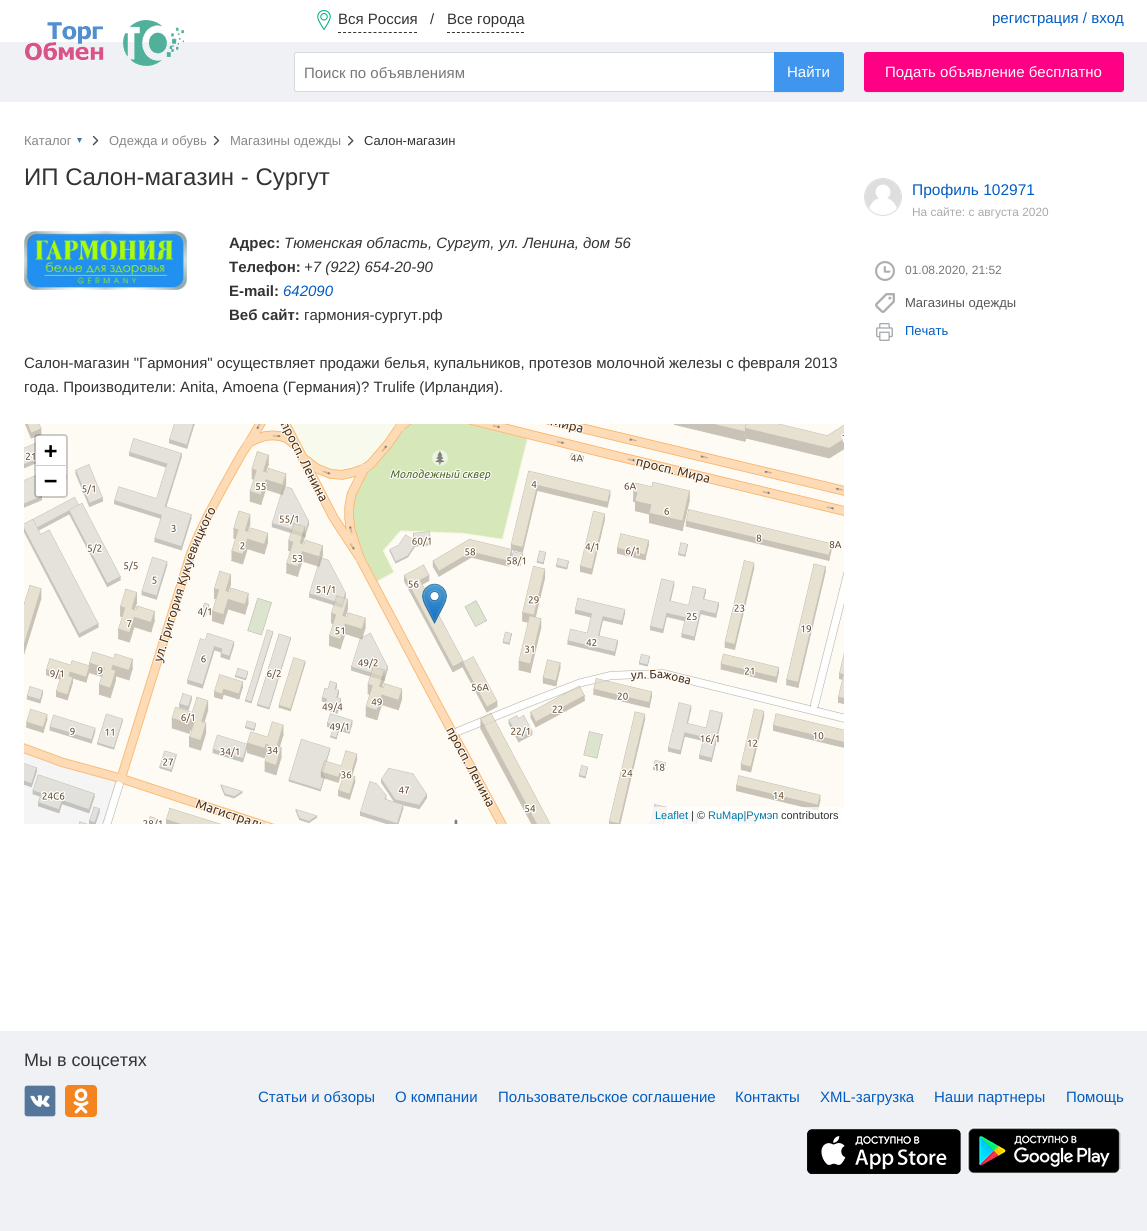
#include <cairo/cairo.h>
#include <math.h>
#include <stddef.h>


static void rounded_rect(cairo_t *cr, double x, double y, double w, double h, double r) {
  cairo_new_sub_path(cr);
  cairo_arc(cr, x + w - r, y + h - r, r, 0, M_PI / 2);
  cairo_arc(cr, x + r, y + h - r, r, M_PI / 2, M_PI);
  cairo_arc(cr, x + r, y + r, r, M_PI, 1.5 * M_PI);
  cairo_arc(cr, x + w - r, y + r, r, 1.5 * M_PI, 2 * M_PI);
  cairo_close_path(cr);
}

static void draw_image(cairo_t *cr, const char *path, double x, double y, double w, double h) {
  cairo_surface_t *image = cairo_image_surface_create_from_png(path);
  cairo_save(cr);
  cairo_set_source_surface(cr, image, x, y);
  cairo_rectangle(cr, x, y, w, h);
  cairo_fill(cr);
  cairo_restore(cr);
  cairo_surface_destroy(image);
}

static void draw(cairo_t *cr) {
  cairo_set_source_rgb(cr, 1, 1, 1);
  cairo_paint(cr);
  draw_image(cr, "images/1.png", 317, 10, 14, 20);
  cairo_new_path(cr);
  cairo_move_to(cr, 338, 32.5);
  cairo_line_to(cr, 417, 32.5);
  cairo_set_source_rgb(cr, 51 / 255.0, 51 / 255.0, 51 / 255.0);
  cairo_set_line_width(cr, 1);
  cairo_set_dash(cr, (double[]){3, 2.07}, 2, 0);
  cairo_stroke(cr);
  cairo_new_path(cr);
  cairo_move_to(cr, 447, 32.5);
  cairo_line_to(cr, 524, 32.5);
  cairo_set_dash(cr, (double[]){3, 1.93}, 2, 0);
  cairo_stroke(cr);
  cairo_set_source_rgb(cr, 240 / 255.0, 241 / 255.0, 244 / 255.0);
  cairo_rectangle(cr, 0, 42, 1147, 60);
  cairo_fill(cr);
  draw_image(cr, "images/2.png", 25, 20, 159, 46);
  cairo_set_source_rgb(cr, 1, 1, 1);
  rounded_rect(cr, 294.5, 52.5, 549, 39, 2.5);
  cairo_fill_preserve(cr);
  cairo_set_source_rgb(cr, 213 / 255.0, 216 / 255.0, 222 / 255.0);
  cairo_set_dash(cr, NULL, 0, 0);
  cairo_stroke(cr);
  cairo_set_source_rgb(cr, 228 / 255.0, 229 / 255.0, 232 / 255.0);
  cairo_new_path(cr);
  cairo_move_to(cr, 774, 92);
  cairo_line_to(cr, 774, 93);
  cairo_line_to(cr, 841, 93);
  cairo_curve_to(cr, 843, 93, 844, 92, 844, 90);
  cairo_line_to(cr, 844, 89);
  cairo_curve_to(cr, 844, 91, 843, 92, 841, 92);
  cairo_close_path(cr);
  cairo_fill(cr);
  cairo_set_source_rgb(cr, 64 / 255.0, 150 / 255.0, 238 / 255.0);
  cairo_new_path(cr);
  cairo_move_to(cr, 774.5, 52.5);
  cairo_line_to(cr, 841, 52.5);
  cairo_curve_to(cr, 842.5, 52.5, 843.5, 53.5, 843.5, 55);
  cairo_line_to(cr, 843.5, 89);
  cairo_curve_to(cr, 843.5, 90.5, 842.5, 91.5, 841, 91.5);
  cairo_line_to(cr, 774.5, 91.5);
  cairo_close_path(cr);
  cairo_fill_preserve(cr);
  cairo_stroke(cr);
  cairo_set_source_rgb(cr, 228 / 255.0, 229 / 255.0, 232 / 255.0);
  cairo_new_path(cr);
  cairo_move_to(cr, 864, 89);
  cairo_line_to(cr, 864, 90);
  cairo_curve_to(cr, 864, 92, 865, 93, 867, 93);
  cairo_line_to(cr, 1121, 93);
  cairo_curve_to(cr, 1123, 93, 1124, 92, 1124, 90);
  cairo_line_to(cr, 1124, 89);
  cairo_curve_to(cr, 1124, 91, 1123, 92, 1121, 92);
  cairo_line_to(cr, 867, 92);
  cairo_curve_to(cr, 865, 92, 864, 91, 864, 89);
  cairo_close_path(cr);
  cairo_fill(cr);
  cairo_set_source_rgb(cr, 1, 0, 132 / 255.0);
  rounded_rect(cr, 864.5, 52.5, 259, 39, 2.5);
  cairo_fill_preserve(cr);
  cairo_stroke(cr);
  draw_image(cr, "images/3.png", 77, 138, 5, 5);
  draw_image(cr, "images/4.png", 92, 136, 7, 10);
  draw_image(cr, "images/5.png", 213, 136, 7, 10);
  draw_image(cr, "images/6.png", 348, 136, 6, 10);
  draw_image(cr, "images/7.png", 24, 231, 163, 59);
  draw_image(cr, "images/8.png", 24, 424, 73, 188);
  draw_image(cr, "images/9.png", 97, 424, 256, 188);
  draw_image(cr, "images/10.png", 353, 424, 256, 188);
  draw_image(cr, "images/11.png", 609, 424, 235, 188);
  draw_image(cr, "images/12.png", 24, 612, 73, 212);
  draw_image(cr, "images/13.png", 97, 612, 256, 212);
  draw_image(cr, "images/14.png", 353, 612, 256, 212);
  draw_image(cr, "images/15.png", 609, 612, 235, 212);
  draw_image(cr, "images/16.png", 422, 583, 25, 41);
  rounded_rect(cr, 35, 435, 32, 62, 3);
  cairo_set_source_rgba(cr, 0, 0, 0, 0.2);
  cairo_set_line_width(cr, 2);
  cairo_stroke(cr);
  cairo_set_source_rgb(cr, 1, 1, 1);
  cairo_new_path(cr);
  cairo_move_to(cr, 38, 436);
  cairo_line_to(cr, 64, 436);
  cairo_curve_to(cr, 65, 436, 66, 437, 66, 438);
  cairo_line_to(cr, 66, 466);
  cairo_line_to(cr, 36, 466);
  cairo_line_to(cr, 36, 438);
  cairo_curve_to(cr, 36, 437, 37, 436, 38, 436);
  cairo_close_path(cr);
  cairo_fill(cr);
  cairo_set_source_rgb(cr, 204 / 255.0, 204 / 255.0, 204 / 255.0);
  cairo_rectangle(cr, 36, 465, 30, 1);
  cairo_fill(cr);
  cairo_set_source_rgb(cr, 1, 1, 1);
  cairo_new_path(cr);
  cairo_move_to(cr, 36, 466);
  cairo_line_to(cr, 66, 466);
  cairo_line_to(cr, 66, 494);
  cairo_curve_to(cr, 66, 495, 65, 496, 64, 496);
  cairo_line_to(cr, 38, 496);
  cairo_curve_to(cr, 37, 496, 36, 495, 36, 494);
  cairo_close_path(cr);
  cairo_fill(cr);
  cairo_set_source_rgba(cr, 1, 1, 1, 0.7);
  cairo_rectangle(cr, 650, 807, 194, 17);
  cairo_fill(cr);
  draw_image(cr, "images/17.png", 865, 179, 36, 36);
  cairo_arc(cr, 883, 197, 18.5, 0, 2 * M_PI);
  cairo_set_source_rgb(cr, 222 / 255.0, 222 / 255.0, 222 / 255.0);
  cairo_set_line_width(cr, 1);
  cairo_stroke(cr);
  draw_image(cr, "images/18.png", 875, 261, 20, 20);
  draw_image(cr, "images/19.png", 875, 293, 20, 20);
  draw_image(cr, "images/20.png", 876, 323, 17, 18);
  cairo_set_source_rgb(cr, 240 / 255.0, 241 / 255.0, 244 / 255.0);
  cairo_rectangle(cr, 0, 1031, 1147, 200);
  cairo_fill(cr);
  draw_image(cr, "images/21.png", 24, 1085, 32, 32);
  draw_image(cr, "images/22.png", 65, 1085, 32, 32);
  draw_image(cr, "images/23.png", 807, 1129, 154, 45);
  draw_image(cr, "images/24.png", 967, 1127, 154, 47);
  cairo_select_font_face(cr, "Liberation Sans", CAIRO_FONT_SLANT_NORMAL, CAIRO_FONT_WEIGHT_NORMAL);
  cairo_set_font_size(cr, 15);
  cairo_set_source_rgb(cr, 51 / 255.0, 51 / 255.0, 51 / 255.0);
  cairo_move_to(cr, 338, 24);
  cairo_show_text(cr, "Вся Россия");
  cairo_move_to(cr, 430, 24);
  cairo_show_text(cr, "/");
  cairo_move_to(cr, 447, 24);
  cairo_show_text(cr, "Все города");
  cairo_set_source_rgb(cr, 0, 92 / 255.0, 195 / 255.0);
  cairo_move_to(cr, 992, 23);
  cairo_show_text(cr, "регистрация / вход");
  cairo_set_source_rgb(cr, 119 / 255.0, 119 / 255.0, 119 / 255.0);
  cairo_move_to(cr, 304, 78);
  cairo_show_text(cr, "Поиск по объявлениям");
  cairo_set_source_rgb(cr, 1, 1, 1);
  cairo_move_to(cr, 787, 77);
  cairo_show_text(cr, "Найти");
  cairo_move_to(cr, 885, 77);
  cairo_show_text(cr, "Подать объявление бесплатно");
  cairo_set_font_size(cr, 13);
  cairo_set_source_rgb(cr, 136 / 255.0, 136 / 255.0, 136 / 255.0);
  cairo_move_to(cr, 24, 145);
  cairo_show_text(cr, "Каталог");
  cairo_move_to(cr, 109, 145);
  cairo_show_text(cr, "Одежда и обувь");
  cairo_move_to(cr, 230, 145);
  cairo_show_text(cr, "Магазины одежды");
  cairo_set_source_rgb(cr, 51 / 255.0, 51 / 255.0, 51 / 255.0);
  cairo_move_to(cr, 364, 145);
  cairo_show_text(cr, "Салон-магазин");
  cairo_set_font_size(cr, 24);
  cairo_move_to(cr, 24, 185);
  cairo_show_text(cr, "ИП Салон-магазин - Сургут");
  cairo_select_font_face(cr, "Liberation Sans", CAIRO_FONT_SLANT_NORMAL, CAIRO_FONT_WEIGHT_BOLD);
  cairo_set_font_size(cr, 15);
  cairo_move_to(cr, 229, 248);
  cairo_show_text(cr, "Адрес:");
  cairo_select_font_face(cr, "Liberation Sans", CAIRO_FONT_SLANT_ITALIC, CAIRO_FONT_WEIGHT_NORMAL);
  cairo_move_to(cr, 284, 248);
  cairo_show_text(cr, "Тюменская область, Сургут, ул. Ленина, дом 56");
  cairo_select_font_face(cr, "Liberation Sans", CAIRO_FONT_SLANT_NORMAL, CAIRO_FONT_WEIGHT_BOLD);
  cairo_move_to(cr, 229, 272);
  cairo_show_text(cr, "Телефон:");
  cairo_select_font_face(cr, "Liberation Sans", CAIRO_FONT_SLANT_ITALIC, CAIRO_FONT_WEIGHT_NORMAL);
  cairo_move_to(cr, 304, 272);
  cairo_show_text(cr, "+7 (922) 654-20-90");
  cairo_select_font_face(cr, "Liberation Sans", CAIRO_FONT_SLANT_NORMAL, CAIRO_FONT_WEIGHT_BOLD);
  cairo_move_to(cr, 229, 296);
  cairo_show_text(cr, "E-mail:");
  cairo_select_font_face(cr, "Liberation Sans", CAIRO_FONT_SLANT_ITALIC, CAIRO_FONT_WEIGHT_NORMAL);
  cairo_set_source_rgb(cr, 0, 92 / 255.0, 195 / 255.0);
  cairo_move_to(cr, 283, 296);
  cairo_show_text(cr, "642090");
  cairo_select_font_face(cr, "Liberation Sans", CAIRO_FONT_SLANT_NORMAL, CAIRO_FONT_WEIGHT_BOLD);
  cairo_set_source_rgb(cr, 51 / 255.0, 51 / 255.0, 51 / 255.0);
  cairo_move_to(cr, 229, 320);
  cairo_show_text(cr, "Веб сайт:");
  cairo_select_font_face(cr, "Liberation Sans", CAIRO_FONT_SLANT_NORMAL, CAIRO_FONT_WEIGHT_NORMAL);
  cairo_move_to(cr, 304, 320);
  cairo_show_text(cr, "гармония-сургут.рф");
  cairo_move_to(cr, 24, 368);
  cairo_show_text(cr, "Салон-магазин \"Гармония\" осуществляет продажи белья, купальников, протезов молочной железы с февраля 2013");
  cairo_move_to(cr, 24, 392);
  cairo_show_text(cr, "года. Производители: Anita, Amoena (Германия)? Trulife (Ирландия).");
  cairo_select_font_face(cr, "DejaVu Sans Mono", CAIRO_FONT_SLANT_NORMAL, CAIRO_FONT_WEIGHT_BOLD);
  cairo_set_font_size(cr, 22);
  cairo_set_source_rgb(cr, 0, 0, 0);
  cairo_move_to(cr, 44, 458);
  cairo_show_text(cr, "+");
  cairo_move_to(cr, 44, 488);
  cairo_show_text(cr, "−");
  cairo_select_font_face(cr, "Liberation Sans", CAIRO_FONT_SLANT_NORMAL, CAIRO_FONT_WEIGHT_NORMAL);
  cairo_set_font_size(cr, 11);
  cairo_set_source_rgb(cr, 0, 120 / 255.0, 168 / 255.0);
  cairo_move_to(cr, 655, 819);
  cairo_show_text(cr, "Leaflet");
  cairo_set_source_rgb(cr, 51 / 255.0, 51 / 255.0, 51 / 255.0);
  cairo_move_to(cr, 691, 819);
  cairo_show_text(cr, "| ©");
  cairo_set_source_rgb(cr, 0, 120 / 255.0, 168 / 255.0);
  cairo_move_to(cr, 708, 819);
  cairo_show_text(cr, "RuMap|Румэп");
  cairo_set_source_rgb(cr, 51 / 255.0, 51 / 255.0, 51 / 255.0);
  cairo_move_to(cr, 781, 819);
  cairo_show_text(cr, "contributors");
  cairo_set_font_size(cr, 15.5);
  cairo_set_source_rgb(cr, 0, 92 / 255.0, 195 / 255.0);
  cairo_move_to(cr, 912, 195);
  cairo_show_text(cr, "Профиль 102971");
  cairo_set_font_size(cr, 11.9);
  cairo_set_source_rgb(cr, 170 / 255.0, 170 / 255.0, 170 / 255.0);
  cairo_move_to(cr, 912, 216);
  cairo_show_text(cr, "На сайте: с августа 2020");
  cairo_set_font_size(cr, 12);
  cairo_set_source_rgb(cr, 119 / 255.0, 119 / 255.0, 119 / 255.0);
  cairo_move_to(cr, 905, 274);
  cairo_show_text(cr, "01.08.2020, 21:52");
  cairo_set_font_size(cr, 13);
  cairo_set_source_rgb(cr, 85 / 255.0, 85 / 255.0, 85 / 255.0);
  cairo_move_to(cr, 905, 307);
  cairo_show_text(cr, "Магазины одежды");
  cairo_set_source_rgb(cr, 0, 92 / 255.0, 195 / 255.0);
  cairo_move_to(cr, 905, 335);
  cairo_show_text(cr, "Печать");
  cairo_set_font_size(cr, 18);
  cairo_set_source_rgb(cr, 51 / 255.0, 51 / 255.0, 51 / 255.0);
  cairo_move_to(cr, 24, 1066);
  cairo_show_text(cr, "Мы в соцсетях");
  cairo_set_font_size(cr, 15);
  cairo_set_source_rgb(cr, 0, 92 / 255.0, 195 / 255.0);
  cairo_move_to(cr, 258, 1102);
  cairo_show_text(cr, "Статьи и обзоры");
  cairo_move_to(cr, 395, 1102);
  cairo_show_text(cr, "О компании");
  cairo_move_to(cr, 498, 1102);
  cairo_show_text(cr, "Пользовательское соглашение");
  cairo_move_to(cr, 735, 1102);
  cairo_show_text(cr, "Контакты");
  cairo_move_to(cr, 820, 1102);
  cairo_show_text(cr, "XML-загрузка");
  cairo_move_to(cr, 934, 1102);
  cairo_show_text(cr, "Наши партнеры");
  cairo_move_to(cr, 1066, 1102);
  cairo_show_text(cr, "Помощь");
}

int main(void) {
  cairo_surface_t *surface = cairo_image_surface_create(CAIRO_FORMAT_RGB24, 1147, 1231);
  cairo_t *cr = cairo_create(surface);
  cairo_font_options_t *options = cairo_font_options_create();
  cairo_font_options_set_hint_metrics(options, CAIRO_HINT_METRICS_OFF);
  cairo_font_options_set_hint_style(options, CAIRO_HINT_STYLE_NONE);
  cairo_set_font_options(cr, options);
  cairo_set_miter_limit(cr, 4);
  draw(cr);
  cairo_surface_write_to_png(surface, "out.png");
  cairo_font_options_destroy(options);
  cairo_destroy(cr);
  cairo_surface_destroy(surface);
  return 0;
}
